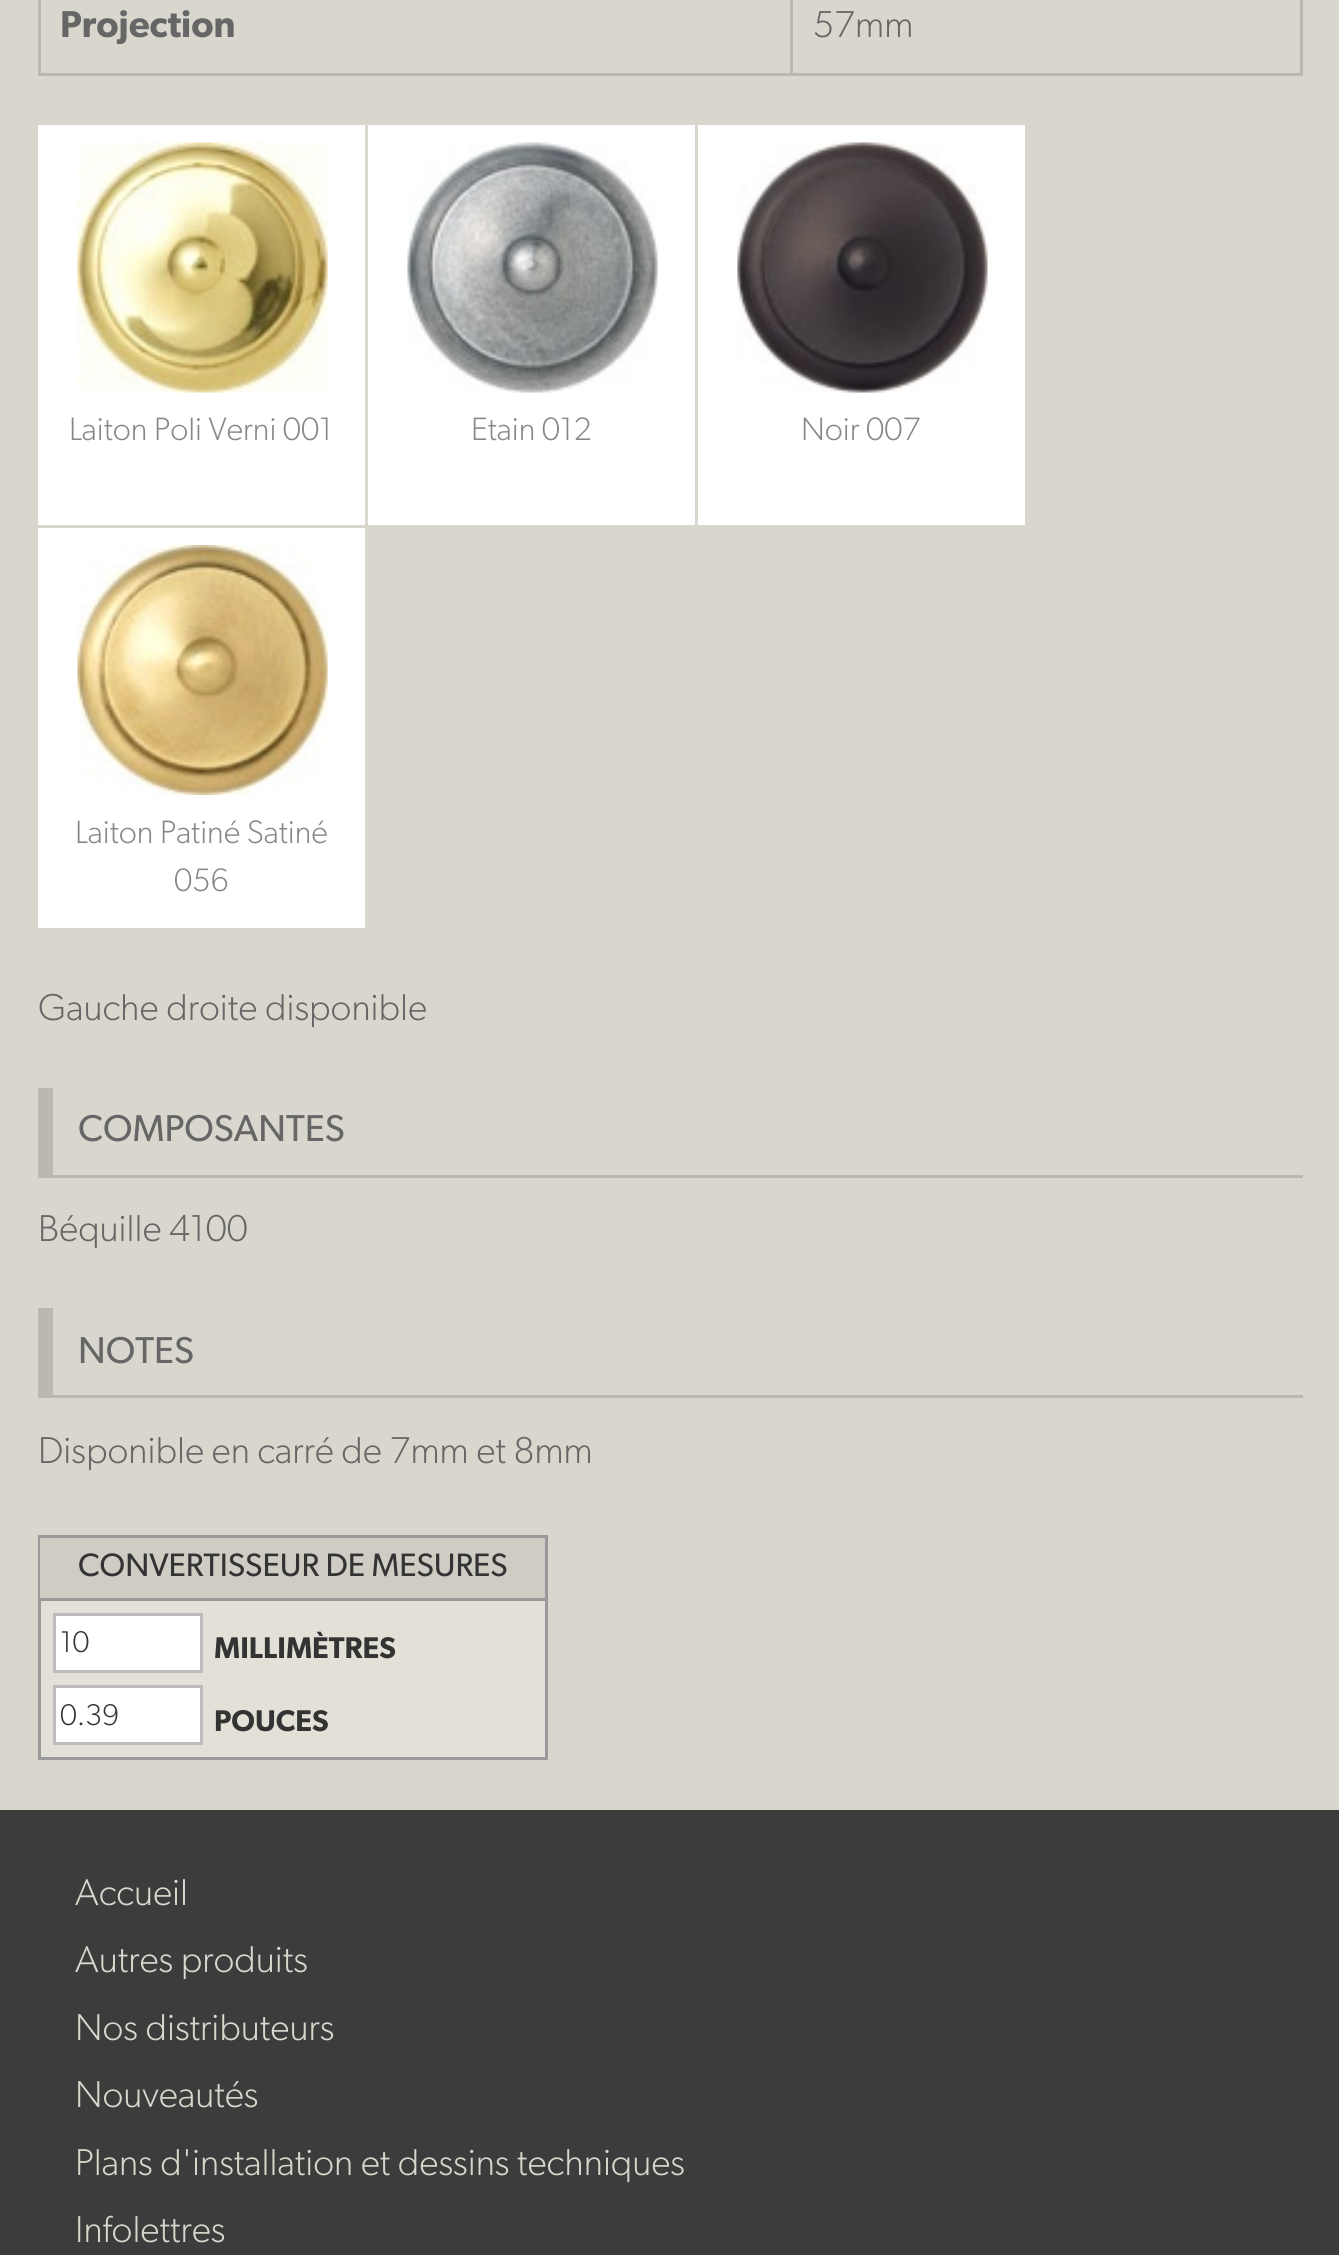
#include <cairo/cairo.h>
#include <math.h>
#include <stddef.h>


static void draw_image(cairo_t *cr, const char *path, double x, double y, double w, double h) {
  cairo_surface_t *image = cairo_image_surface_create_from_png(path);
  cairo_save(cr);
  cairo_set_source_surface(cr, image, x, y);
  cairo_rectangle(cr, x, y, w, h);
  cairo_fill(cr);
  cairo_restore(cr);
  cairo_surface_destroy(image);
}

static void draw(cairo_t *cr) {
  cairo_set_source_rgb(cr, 217 / 255.0, 215 / 255.0, 205 / 255.0);
  cairo_paint(cr);
  cairo_set_source_rgb(cr, 187 / 255.0, 185 / 255.0, 175 / 255.0);
  cairo_rectangle(cr, 1300, 0, 3, 75);
  cairo_fill(cr);
  cairo_rectangle(cr, 38, 73, 1265, 3);
  cairo_fill(cr);
  cairo_rectangle(cr, 38, 0, 3, 75);
  cairo_fill(cr);
  cairo_rectangle(cr, 790, 0, 3, 75);
  cairo_fill(cr);
  cairo_set_source_rgb(cr, 1, 1, 1);
  cairo_rectangle(cr, 38, 125, 327, 400);
  cairo_fill(cr);
  draw_image(cr, "images/1.png", 77, 142, 251, 251);
  cairo_rectangle(cr, 368, 125, 327, 400);
  cairo_fill(cr);
  draw_image(cr, "images/2.png", 407, 142, 251, 251);
  cairo_rectangle(cr, 698, 125, 327, 400);
  cairo_fill(cr);
  draw_image(cr, "images/3.png", 737, 142, 251, 251);
  cairo_rectangle(cr, 38, 528, 327, 400);
  cairo_fill(cr);
  draw_image(cr, "images/4.png", 77, 545, 251, 250);
  cairo_set_source_rgb(cr, 187 / 255.0, 185 / 255.0, 175 / 255.0);
  cairo_rectangle(cr, 53, 1175, 1250, 3);
  cairo_fill(cr);
  cairo_rectangle(cr, 38, 1088, 15, 90);
  cairo_fill(cr);
  cairo_rectangle(cr, 53, 1395, 1250, 3);
  cairo_fill(cr);
  cairo_rectangle(cr, 38, 1308, 15, 90);
  cairo_fill(cr);
  cairo_set_source_rgb(cr, 227 / 255.0, 225 / 255.0, 215 / 255.0);
  cairo_rectangle(cr, 41, 1601, 504, 156);
  cairo_fill(cr);
  cairo_rectangle(cr, 39.5, 1536.5, 507, 222);
  cairo_set_source_rgb(cr, 153 / 255.0, 153 / 255.0, 153 / 255.0);
  cairo_set_line_width(cr, 3);
  cairo_stroke(cr);
  cairo_set_source_rgb(cr, 207 / 255.0, 205 / 255.0, 195 / 255.0);
  cairo_rectangle(cr, 40, 1538, 505, 60);
  cairo_fill(cr);
  cairo_set_source_rgb(cr, 153 / 255.0, 153 / 255.0, 153 / 255.0);
  cairo_rectangle(cr, 40, 1598, 505, 3);
  cairo_fill(cr);
  cairo_set_source_rgb(cr, 1, 1, 1);
  cairo_rectangle(cr, 54.5, 1614.5, 147, 57);
  cairo_fill_preserve(cr);
  cairo_set_source_rgb(cr, 187 / 255.0, 187 / 255.0, 187 / 255.0);
  cairo_stroke(cr);
  cairo_set_source_rgb(cr, 1, 1, 1);
  cairo_rectangle(cr, 54.5, 1686.5, 147, 57);
  cairo_fill_preserve(cr);
  cairo_set_source_rgb(cr, 187 / 255.0, 187 / 255.0, 187 / 255.0);
  cairo_stroke(cr);
  cairo_set_source_rgb(cr, 60 / 255.0, 60 / 255.0, 60 / 255.0);
  cairo_rectangle(cr, 0, 1810, 1339, 445);
  cairo_fill(cr);
  cairo_select_font_face(cr, "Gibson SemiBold", CAIRO_FONT_SLANT_NORMAL, CAIRO_FONT_WEIGHT_NORMAL);
  cairo_set_font_size(cr, 37.5);
  cairo_set_source_rgb(cr, 102 / 255.0, 102 / 255.0, 102 / 255.0);
  cairo_move_to(cr, 60, 37);
  cairo_show_text(cr, "Projection");
  cairo_select_font_face(cr, "Gibson Light", CAIRO_FONT_SLANT_NORMAL, CAIRO_FONT_WEIGHT_NORMAL);
  cairo_move_to(cr, 813, 37);
  cairo_show_text(cr, "57mm");
  cairo_set_font_size(cr, 32.5);
  cairo_set_source_rgb(cr, 136 / 255.0, 136 / 255.0, 136 / 255.0);
  cairo_move_to(cr, 69, 440);
  cairo_show_text(cr, "Laiton Poli Verni 001");
  cairo_move_to(cr, 471, 440);
  cairo_show_text(cr, "Etain 012");
  cairo_move_to(cr, 801, 440);
  cairo_show_text(cr, "Noir 007");
  cairo_move_to(cr, 75, 843);
  cairo_show_text(cr, "Laiton Patiné Satiné");
  cairo_move_to(cr, 174, 891);
  cairo_show_text(cr, "056");
  cairo_set_font_size(cr, 37.5);
  cairo_set_source_rgb(cr, 102 / 255.0, 102 / 255.0, 102 / 255.0);
  cairo_move_to(cr, 38, 1020);
  cairo_show_text(cr, "Gauche droite disponible");
  cairo_select_font_face(cr, "Gibson", CAIRO_FONT_SLANT_NORMAL, CAIRO_FONT_WEIGHT_NORMAL);
  cairo_move_to(cr, 78, 1141);
  cairo_show_text(cr, "COMPOSANTES");
  cairo_select_font_face(cr, "Gibson Light", CAIRO_FONT_SLANT_NORMAL, CAIRO_FONT_WEIGHT_NORMAL);
  cairo_move_to(cr, 38, 1241);
  cairo_show_text(cr, "Béquille 4100");
  cairo_select_font_face(cr, "Gibson", CAIRO_FONT_SLANT_NORMAL, CAIRO_FONT_WEIGHT_NORMAL);
  cairo_move_to(cr, 78, 1363);
  cairo_show_text(cr, "NOTES");
  cairo_select_font_face(cr, "Gibson Light", CAIRO_FONT_SLANT_NORMAL, CAIRO_FONT_WEIGHT_NORMAL);
  cairo_move_to(cr, 38, 1463);
  cairo_show_text(cr, "Disponible en carré de 7mm et 8mm");
  cairo_select_font_face(cr, "Gibson", CAIRO_FONT_SLANT_NORMAL, CAIRO_FONT_WEIGHT_NORMAL);
  cairo_set_font_size(cr, 32.5);
  cairo_set_source_rgb(cr, 51 / 255.0, 51 / 255.0, 51 / 255.0);
  cairo_move_to(cr, 78, 1576);
  cairo_show_text(cr, "CONVERTISSEUR DE MESURES");
  cairo_select_font_face(cr, "Gibson Light", CAIRO_FONT_SLANT_NORMAL, CAIRO_FONT_WEIGHT_NORMAL);
  cairo_set_font_size(cr, 30);
  cairo_move_to(cr, 60, 1652);
  cairo_show_text(cr, "10");
  cairo_select_font_face(cr, "Gibson SemiBold", CAIRO_FONT_SLANT_NORMAL, CAIRO_FONT_WEIGHT_NORMAL);
  cairo_move_to(cr, 214, 1658);
  cairo_show_text(cr, "MILLIMÈTRES");
  cairo_select_font_face(cr, "Gibson Light", CAIRO_FONT_SLANT_NORMAL, CAIRO_FONT_WEIGHT_NORMAL);
  cairo_move_to(cr, 60, 1725);
  cairo_show_text(cr, "0.39");
  cairo_select_font_face(cr, "Gibson SemiBold", CAIRO_FONT_SLANT_NORMAL, CAIRO_FONT_WEIGHT_NORMAL);
  cairo_move_to(cr, 214, 1731);
  cairo_show_text(cr, "POUCES");
  cairo_select_font_face(cr, "Gibson Light", CAIRO_FONT_SLANT_NORMAL, CAIRO_FONT_WEIGHT_NORMAL);
  cairo_set_font_size(cr, 37.5);
  cairo_set_source_rgb(cr, 217 / 255.0, 215 / 255.0, 205 / 255.0);
  cairo_move_to(cr, 75, 1905);
  cairo_show_text(cr, "Accueil");
  cairo_move_to(cr, 75, 1972);
  cairo_show_text(cr, "Autres produits");
  cairo_move_to(cr, 75, 2040);
  cairo_show_text(cr, "Nos distributeurs");
  cairo_move_to(cr, 75, 2107);
  cairo_show_text(cr, "Nouveautés");
  cairo_move_to(cr, 75, 2175);
  cairo_show_text(cr, "Plans d'installation et dessins techniques");
  cairo_move_to(cr, 75, 2242);
  cairo_show_text(cr, "Infolettres");
}

int main(void) {
  cairo_surface_t *surface = cairo_image_surface_create(CAIRO_FORMAT_RGB24, 1339, 2255);
  cairo_t *cr = cairo_create(surface);
  cairo_font_options_t *options = cairo_font_options_create();
  cairo_font_options_set_hint_metrics(options, CAIRO_HINT_METRICS_OFF);
  cairo_font_options_set_hint_style(options, CAIRO_HINT_STYLE_NONE);
  cairo_set_font_options(cr, options);
  cairo_set_miter_limit(cr, 4);
  draw(cr);
  cairo_surface_write_to_png(surface, "out.png");
  cairo_font_options_destroy(options);
  cairo_destroy(cr);
  cairo_surface_destroy(surface);
  return 0;
}
